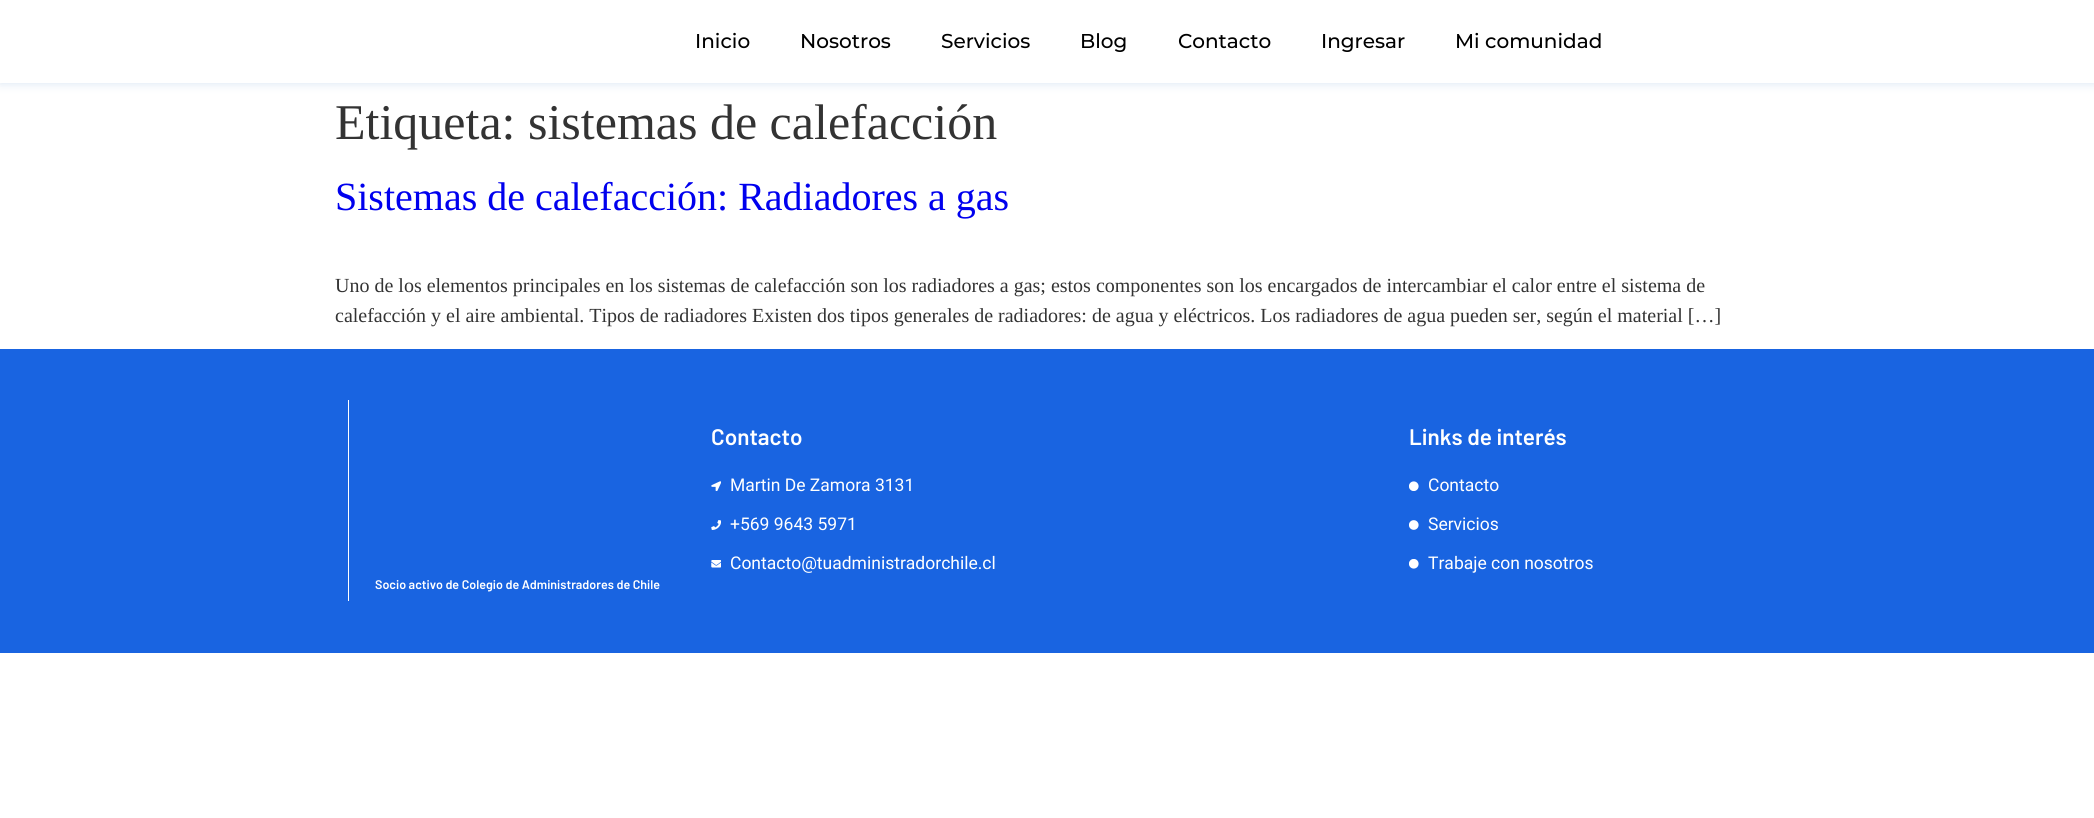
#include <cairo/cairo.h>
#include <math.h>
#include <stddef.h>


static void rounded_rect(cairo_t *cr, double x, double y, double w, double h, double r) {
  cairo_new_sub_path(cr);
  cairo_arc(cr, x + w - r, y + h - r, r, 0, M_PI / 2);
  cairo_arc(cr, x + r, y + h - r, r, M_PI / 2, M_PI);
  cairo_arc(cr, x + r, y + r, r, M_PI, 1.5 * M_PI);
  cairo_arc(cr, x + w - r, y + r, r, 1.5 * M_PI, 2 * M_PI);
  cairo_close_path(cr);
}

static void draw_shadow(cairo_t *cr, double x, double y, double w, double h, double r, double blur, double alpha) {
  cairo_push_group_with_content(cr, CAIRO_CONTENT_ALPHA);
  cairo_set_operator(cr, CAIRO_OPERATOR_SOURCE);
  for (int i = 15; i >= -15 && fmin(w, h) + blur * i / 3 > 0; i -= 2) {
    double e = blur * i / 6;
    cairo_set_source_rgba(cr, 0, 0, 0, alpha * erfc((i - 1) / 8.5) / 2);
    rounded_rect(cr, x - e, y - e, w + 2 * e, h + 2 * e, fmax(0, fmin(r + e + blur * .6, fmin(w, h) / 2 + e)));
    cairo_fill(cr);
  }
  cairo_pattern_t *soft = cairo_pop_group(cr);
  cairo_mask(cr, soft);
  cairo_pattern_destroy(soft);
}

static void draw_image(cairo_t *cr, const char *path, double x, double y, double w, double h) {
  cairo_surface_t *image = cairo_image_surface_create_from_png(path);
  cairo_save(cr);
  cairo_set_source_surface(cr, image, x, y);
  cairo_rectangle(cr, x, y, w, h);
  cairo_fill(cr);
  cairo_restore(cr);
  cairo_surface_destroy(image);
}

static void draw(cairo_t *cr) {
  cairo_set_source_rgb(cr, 1, 1, 1);
  cairo_paint(cr);
  cairo_set_source_rgb(cr, 215 / 255.0, 227 / 255.0, 242 / 255.0);
  draw_shadow(cr, 0, 0, 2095, 83, 0, 5, 1);
  cairo_set_source_rgb(cr, 1, 1, 1);
  cairo_rectangle(cr, 0, 0, 2094, 83);
  cairo_fill(cr);
  cairo_set_source_rgb(cr, 25 / 255.0, 100 / 255.0, 225 / 255.0);
  cairo_rectangle(cr, 0, 349, 2094, 304);
  cairo_fill(cr);
  draw_image(cr, "images/1.png", 711, 481, 10, 10);
  draw_image(cr, "images/2.png", 711, 520, 10, 10);
  draw_image(cr, "images/3.png", 711, 560, 10, 8);
  draw_image(cr, "images/4.png", 1409, 481, 10, 10);
  draw_image(cr, "images/5.png", 1409, 520, 10, 10);
  draw_image(cr, "images/6.png", 1409, 559, 10, 10);
  cairo_set_source_rgb(cr, 1, 1, 1);
  cairo_rectangle(cr, 348, 400, 1, 201);
  cairo_fill(cr);
  cairo_select_font_face(cr, "Montserrat Medium", CAIRO_FONT_SLANT_NORMAL, CAIRO_FONT_WEIGHT_NORMAL);
  cairo_set_font_size(cr, 20);
  cairo_set_source_rgb(cr, 0, 0, 0);
  cairo_move_to(cr, 695, 48);
  cairo_show_text(cr, "Inicio");
  cairo_move_to(cr, 800, 48);
  cairo_show_text(cr, "Nosotros");
  cairo_move_to(cr, 941, 48);
  cairo_show_text(cr, "Servicios");
  cairo_move_to(cr, 1080, 48);
  cairo_show_text(cr, "Blog");
  cairo_move_to(cr, 1178, 48);
  cairo_show_text(cr, "Contacto");
  cairo_move_to(cr, 1321, 48);
  cairo_show_text(cr, "Ingresar");
  cairo_move_to(cr, 1455, 48);
  cairo_show_text(cr, "Mi comunidad");
  cairo_select_font_face(cr, "Liberation Serif", CAIRO_FONT_SLANT_NORMAL, CAIRO_FONT_WEIGHT_NORMAL);
  cairo_set_font_size(cr, 50);
  cairo_set_source_rgb(cr, 51 / 255.0, 51 / 255.0, 51 / 255.0);
  cairo_move_to(cr, 335, 139);
  cairo_show_text(cr, "Etiqueta: sistemas de calefacción");
  cairo_set_font_size(cr, 40);
  cairo_set_source_rgb(cr, 0, 0, 238 / 255.0);
  cairo_move_to(cr, 335, 210);
  cairo_show_text(cr, "Sistemas de calefacción: Radiadores a gas");
  cairo_set_font_size(cr, 20);
  cairo_set_source_rgb(cr, 51 / 255.0, 51 / 255.0, 51 / 255.0);
  cairo_move_to(cr, 335, 292);
  cairo_show_text(cr, "Uno de los elementos principales en los sistemas de calefacción son los radiadores a gas; estos componentes son los encargados de intercambiar el calor entre el sistema de");
  cairo_move_to(cr, 335, 322);
  cairo_show_text(cr, "calefacción y el aire ambiental. Tipos de radiadores Existen dos tipos generales de radiadores: de agua y eléctricos. Los radiadores de agua pueden ser, según el material […]");
  cairo_select_font_face(cr, "Barlow SemiBold", CAIRO_FONT_SLANT_NORMAL, CAIRO_FONT_WEIGHT_NORMAL);
  cairo_set_font_size(cr, 22.5);
  cairo_set_source_rgb(cr, 1, 1, 1);
  cairo_move_to(cr, 711, 445);
  cairo_show_text(cr, "Contacto");
  cairo_select_font_face(cr, "Roboto", CAIRO_FONT_SLANT_NORMAL, CAIRO_FONT_WEIGHT_NORMAL);
  cairo_set_font_size(cr, 17.5);
  cairo_move_to(cr, 730, 491);
  cairo_show_text(cr, "Martin De Zamora 3131");
  cairo_move_to(cr, 730, 530);
  cairo_show_text(cr, "+569 9643 5971");
  cairo_move_to(cr, 730, 569);
  cairo_show_text(cr, "Contacto@tuadministradorchile.cl");
  cairo_select_font_face(cr, "Barlow SemiBold", CAIRO_FONT_SLANT_NORMAL, CAIRO_FONT_WEIGHT_NORMAL);
  cairo_set_font_size(cr, 22.5);
  cairo_move_to(cr, 1409, 445);
  cairo_show_text(cr, "Links de interés");
  cairo_select_font_face(cr, "Roboto", CAIRO_FONT_SLANT_NORMAL, CAIRO_FONT_WEIGHT_NORMAL);
  cairo_set_font_size(cr, 17.5);
  cairo_move_to(cr, 1428, 491);
  cairo_show_text(cr, "Contacto");
  cairo_move_to(cr, 1428, 530);
  cairo_show_text(cr, "Servicios");
  cairo_move_to(cr, 1428, 569);
  cairo_show_text(cr, "Trabaje con nosotros");
  cairo_select_font_face(cr, "Barlow SemiBold", CAIRO_FONT_SLANT_NORMAL, CAIRO_FONT_WEIGHT_NORMAL);
  cairo_set_font_size(cr, 12.5);
  cairo_move_to(cr, 375, 589);
  cairo_show_text(cr, "Socio activo de Colegio de Administradores de Chile");
}

int main(void) {
  cairo_surface_t *surface = cairo_image_surface_create(CAIRO_FORMAT_RGB24, 2094, 818);
  cairo_t *cr = cairo_create(surface);
  cairo_font_options_t *options = cairo_font_options_create();
  cairo_font_options_set_hint_metrics(options, CAIRO_HINT_METRICS_OFF);
  cairo_font_options_set_hint_style(options, CAIRO_HINT_STYLE_NONE);
  cairo_set_font_options(cr, options);
  cairo_set_miter_limit(cr, 4);
  draw(cr);
  cairo_surface_write_to_png(surface, "out.png");
  cairo_font_options_destroy(options);
  cairo_destroy(cr);
  cairo_surface_destroy(surface);
  return 0;
}
